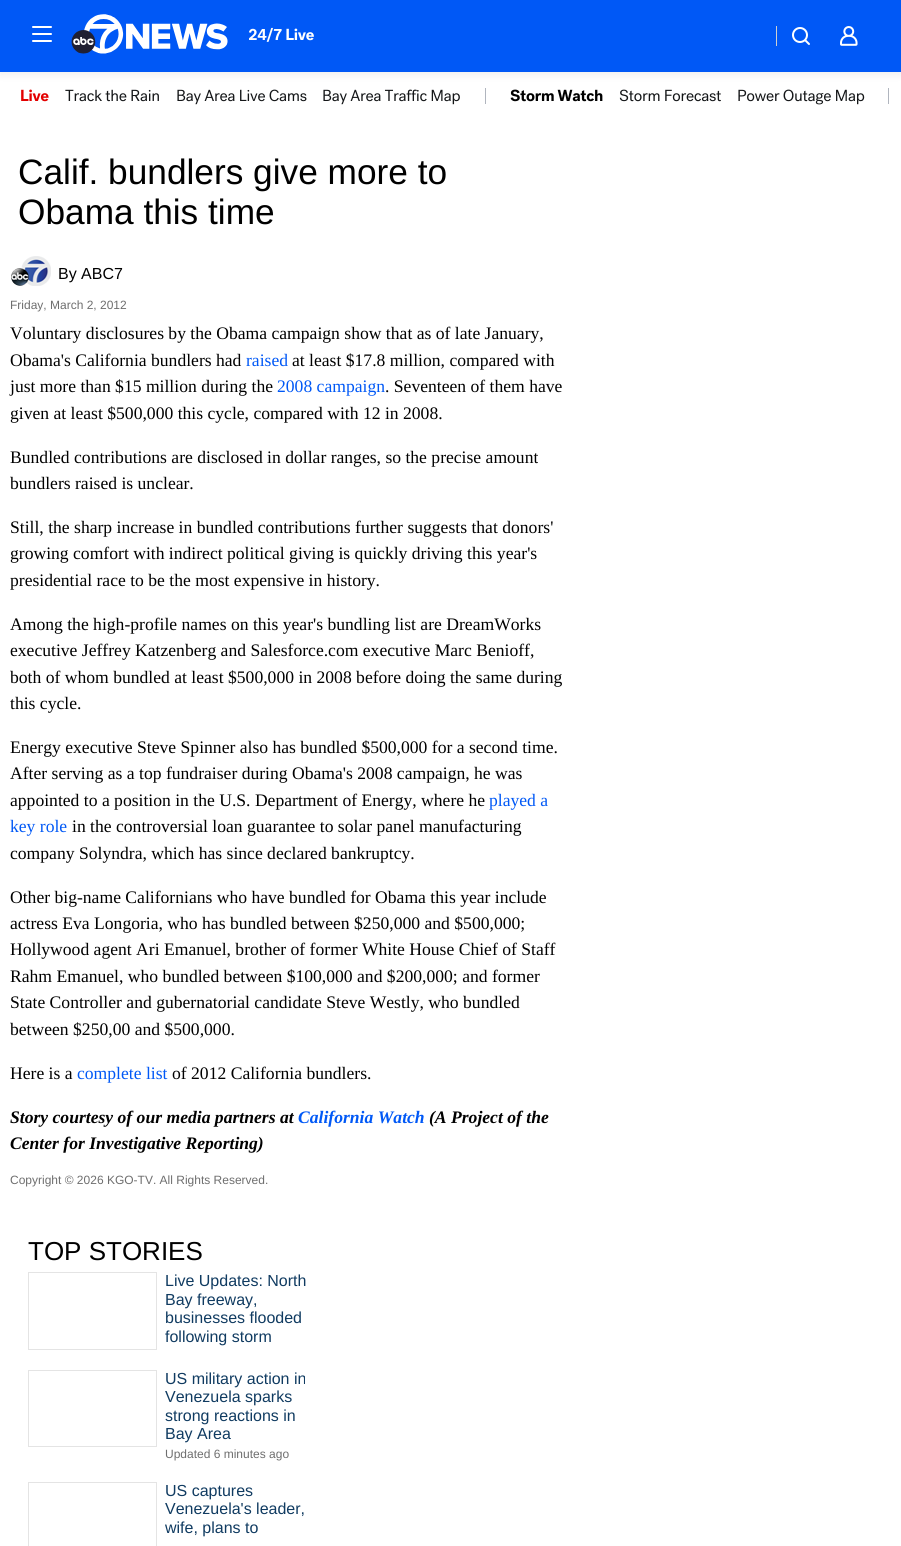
#include <cairo/cairo.h>
#include <math.h>
#include <stddef.h>


static void rounded_rect(cairo_t *cr, double x, double y, double w, double h, double r) {
  cairo_new_sub_path(cr);
  cairo_arc(cr, x + w - r, y + h - r, r, 0, M_PI / 2);
  cairo_arc(cr, x + r, y + h - r, r, M_PI / 2, M_PI);
  cairo_arc(cr, x + r, y + r, r, M_PI, 1.5 * M_PI);
  cairo_arc(cr, x + w - r, y + r, r, 1.5 * M_PI, 2 * M_PI);
  cairo_close_path(cr);
}

static void draw_shadow(cairo_t *cr, double x, double y, double w, double h, double r, double blur, double alpha) {
  cairo_push_group_with_content(cr, CAIRO_CONTENT_ALPHA);
  cairo_set_operator(cr, CAIRO_OPERATOR_SOURCE);
  for (int i = 15; i >= -15 && fmin(w, h) + blur * i / 3 > 0; i -= 2) {
    double e = blur * i / 6;
    cairo_set_source_rgba(cr, 0, 0, 0, alpha * erfc((i - 1) / 8.5) / 2);
    rounded_rect(cr, x - e, y - e, w + 2 * e, h + 2 * e, fmax(0, fmin(r + e + blur * .6, fmin(w, h) / 2 + e)));
    cairo_fill(cr);
  }
  cairo_pattern_t *soft = cairo_pop_group(cr);
  cairo_mask(cr, soft);
  cairo_pattern_destroy(soft);
}

static void draw_image(cairo_t *cr, const char *path, double x, double y, double w, double h) {
  cairo_surface_t *image = cairo_image_surface_create_from_png(path);
  cairo_save(cr);
  cairo_set_source_surface(cr, image, x, y);
  cairo_rectangle(cr, x, y, w, h);
  cairo_fill(cr);
  cairo_restore(cr);
  cairo_surface_destroy(image);
}

static void draw(cairo_t *cr) {
  cairo_set_source_rgb(cr, 1, 1, 1);
  cairo_paint(cr);
  draw_image(cr, "images/5.png", 21, 89, 28, 13);
  draw_image(cr, "images/6.png", 65, 89, 94, 13);
  draw_image(cr, "images/7.png", 177, 89, 130, 16);
  draw_image(cr, "images/8.png", 323, 89, 137, 16);
  cairo_set_source_rgb(cr, 176 / 255.0, 181 / 255.0, 190 / 255.0);
  cairo_rectangle(cr, 485, 88, 1, 16);
  cairo_fill(cr);
  draw_image(cr, "images/9.png", 510, 89, 93, 13);
  draw_image(cr, "images/10.png", 619, 89, 102, 13);
  draw_image(cr, "images/11.png", 738, 89, 127, 16);
  cairo_rectangle(cr, 888, 88, 1, 16);
  cairo_fill(cr);
  cairo_set_source_rgb(cr, 0, 0, 0);
  draw_shadow(cr, 0, 2, 901, 72, 0, 5, 0.08);
  cairo_set_source_rgb(cr, 0, 88 / 255.0, 246 / 255.0);
  cairo_rectangle(cr, 0, 0, 901, 72);
  cairo_fill(cr);
  cairo_set_source_rgb(cr, 1, 1, 1);
  rounded_rect(cr, 32, 33, 20, 2, 1);
  cairo_fill(cr);
  rounded_rect(cr, 32, 26, 20, 2, 1);
  cairo_fill(cr);
  rounded_rect(cr, 32, 40, 20, 2, 1);
  cairo_fill(cr);
  draw_image(cr, "images/1.png", 71, 14, 157, 40);
  draw_image(cr, "images/2.png", 248, 27, 66, 15);
  cairo_set_source_rgb(cr, 206 / 255.0, 207 / 255.0, 207 / 255.0);
  cairo_rectangle(cr, 776, 26, 1, 20);
  cairo_fill(cr);
  draw_image(cr, "images/3.png", 792, 27, 18, 18);
  draw_image(cr, "images/4.png", 840, 26, 18, 20);
  draw_image(cr, "images/12.png", 11, 256, 40, 30);
  cairo_rectangle(cr, 28.5, 1272.5, 128, 77);
  cairo_set_source_rgb(cr, 228 / 255.0, 228 / 255.0, 228 / 255.0);
  cairo_set_line_width(cr, 1);
  cairo_stroke(cr);
  cairo_rectangle(cr, 28.5, 1370.5, 128, 76);
  cairo_stroke(cr);
  cairo_rectangle(cr, 28.5, 1482.5, 128, 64);
  cairo_stroke(cr);
  cairo_select_font_face(cr, "Liberation Sans", CAIRO_FONT_SLANT_NORMAL, CAIRO_FONT_WEIGHT_NORMAL);
  cairo_set_font_size(cr, 35.25);
  cairo_set_source_rgb(cr, 0, 0, 0);
  cairo_move_to(cr, 18, 184);
  cairo_show_text(cr, "Calif. bundlers give more to");
  cairo_move_to(cr, 18, 224);
  cairo_show_text(cr, "Obama this time");
  cairo_set_font_size(cr, 16);
  cairo_move_to(cr, 58, 279);
  cairo_show_text(cr, "By ABC7");
  cairo_set_font_size(cr, 12);
  cairo_set_source_rgb(cr, 110 / 255.0, 110 / 255.0, 110 / 255.0);
  cairo_move_to(cr, 10, 309);
  cairo_show_text(cr, "Friday, March 2, 2012");
  cairo_select_font_face(cr, "Liberation Serif", CAIRO_FONT_SLANT_NORMAL, CAIRO_FONT_WEIGHT_NORMAL);
  cairo_set_font_size(cr, 17.6);
  cairo_set_source_rgb(cr, 0, 0, 0);
  cairo_move_to(cr, 10, 339);
  cairo_show_text(cr, "Voluntary disclosures by the Obama campaign show that as of late January,");
  cairo_move_to(cr, 10, 366);
  cairo_show_text(cr, "Obama's California bundlers had");
  cairo_set_source_rgb(cr, 0, 88 / 255.0, 246 / 255.0);
  cairo_move_to(cr, 246, 366);
  cairo_show_text(cr, "raised");
  cairo_set_source_rgb(cr, 0, 0, 0);
  cairo_move_to(cr, 292, 366);
  cairo_show_text(cr, "at least $17.8 million, compared with");
  cairo_move_to(cr, 10, 392);
  cairo_show_text(cr, "just more than $15 million during the");
  cairo_set_source_rgb(cr, 0, 88 / 255.0, 246 / 255.0);
  cairo_move_to(cr, 277, 392);
  cairo_show_text(cr, "2008 campaign");
  cairo_set_source_rgb(cr, 0, 0, 0);
  cairo_move_to(cr, 385, 392);
  cairo_show_text(cr, ". Seventeen of them have");
  cairo_move_to(cr, 10, 419);
  cairo_show_text(cr, "given at least $500,000 this cycle, compared with 12 in 2008.");
  cairo_move_to(cr, 10, 463);
  cairo_show_text(cr, "Bundled contributions are disclosed in dollar ranges, so the precise amount");
  cairo_move_to(cr, 10, 489);
  cairo_show_text(cr, "bundlers raised is unclear.");
  cairo_move_to(cr, 10, 533);
  cairo_show_text(cr, "Still, the sharp increase in bundled contributions further suggests that donors'");
  cairo_move_to(cr, 10, 559);
  cairo_show_text(cr, "growing comfort with indirect political giving is quickly driving this year's");
  cairo_move_to(cr, 10, 586);
  cairo_show_text(cr, "presidential race to be the most expensive in history.");
  cairo_move_to(cr, 10, 630);
  cairo_show_text(cr, "Among the high-profile names on this year's bundling list are DreamWorks");
  cairo_move_to(cr, 10, 656);
  cairo_show_text(cr, "executive Jeffrey Katzenberg and Salesforce.com executive Marc Benioff,");
  cairo_move_to(cr, 10, 683);
  cairo_show_text(cr, "both of whom bundled at least $500,000 in 2008 before doing the same during");
  cairo_move_to(cr, 10, 709);
  cairo_show_text(cr, "this cycle.");
  cairo_move_to(cr, 10, 753);
  cairo_show_text(cr, "Energy executive Steve Spinner also has bundled $500,000 for a second time.");
  cairo_move_to(cr, 10, 779);
  cairo_show_text(cr, "After serving as a top fundraiser during Obama's 2008 campaign, he was");
  cairo_move_to(cr, 10, 806);
  cairo_show_text(cr, "appointed to a position in the U.S. Department of Energy, where he");
  cairo_set_source_rgb(cr, 0, 88 / 255.0, 246 / 255.0);
  cairo_move_to(cr, 489, 806);
  cairo_show_text(cr, "played a");
  cairo_move_to(cr, 10, 832);
  cairo_show_text(cr, "key role");
  cairo_set_source_rgb(cr, 0, 0, 0);
  cairo_move_to(cr, 72, 832);
  cairo_show_text(cr, "in the controversial loan guarantee to solar panel manufacturing");
  cairo_move_to(cr, 10, 859);
  cairo_show_text(cr, "company Solyndra, which has since declared bankruptcy.");
  cairo_move_to(cr, 10, 903);
  cairo_show_text(cr, "Other big-name Californians who have bundled for Obama this year include");
  cairo_move_to(cr, 10, 929);
  cairo_show_text(cr, "actress Eva Longoria, who has bundled between $250,000 and $500,000;");
  cairo_move_to(cr, 10, 955);
  cairo_show_text(cr, "Hollywood agent Ari Emanuel, brother of former White House Chief of Staff");
  cairo_move_to(cr, 10, 982);
  cairo_show_text(cr, "Rahm Emanuel, who bundled between $100,000 and $200,000; and former");
  cairo_move_to(cr, 10, 1008);
  cairo_show_text(cr, "State Controller and gubernatorial candidate Steve Westly, who bundled");
  cairo_move_to(cr, 10, 1035);
  cairo_show_text(cr, "between $250,00 and $500,000.");
  cairo_move_to(cr, 10, 1079);
  cairo_show_text(cr, "Here is a");
  cairo_set_source_rgb(cr, 0, 88 / 255.0, 246 / 255.0);
  cairo_move_to(cr, 77, 1079);
  cairo_show_text(cr, "complete list");
  cairo_set_source_rgb(cr, 0, 0, 0);
  cairo_move_to(cr, 172, 1079);
  cairo_show_text(cr, "of 2012 California bundlers.");
  cairo_select_font_face(cr, "Liberation Serif", CAIRO_FONT_SLANT_ITALIC, CAIRO_FONT_WEIGHT_BOLD);
  cairo_move_to(cr, 10, 1123);
  cairo_show_text(cr, "Story courtesy of our media partners at");
  cairo_set_source_rgb(cr, 0, 88 / 255.0, 246 / 255.0);
  cairo_move_to(cr, 298, 1123);
  cairo_show_text(cr, "California Watch");
  cairo_set_source_rgb(cr, 0, 0, 0);
  cairo_move_to(cr, 429, 1123);
  cairo_show_text(cr, "(A Project of the");
  cairo_move_to(cr, 10, 1149);
  cairo_show_text(cr, "Center for Investigative Reporting)");
  cairo_select_font_face(cr, "Liberation Sans", CAIRO_FONT_SLANT_NORMAL, CAIRO_FONT_WEIGHT_NORMAL);
  cairo_set_font_size(cr, 12);
  cairo_set_source_rgb(cr, 110 / 255.0, 110 / 255.0, 110 / 255.0);
  cairo_move_to(cr, 10, 1184);
  cairo_show_text(cr, "Copyright © 2026 KGO-TV. All Rights Reserved.");
  cairo_set_font_size(cr, 26);
  cairo_set_source_rgb(cr, 0, 0, 0);
  cairo_move_to(cr, 28, 1260);
  cairo_show_text(cr, "TOP STORIES");
  cairo_set_font_size(cr, 16);
  cairo_set_source_rgb(cr, 16 / 255.0, 59 / 255.0, 97 / 255.0);
  cairo_move_to(cr, 165, 1286);
  cairo_show_text(cr, "Live Updates: North");
  cairo_move_to(cr, 165, 1305);
  cairo_show_text(cr, "Bay freeway,");
  cairo_move_to(cr, 165, 1323);
  cairo_show_text(cr, "businesses flooded");
  cairo_move_to(cr, 165, 1342);
  cairo_show_text(cr, "following storm");
  cairo_move_to(cr, 165, 1384);
  cairo_show_text(cr, "US military action in");
  cairo_move_to(cr, 165, 1402);
  cairo_show_text(cr, "Venezuela sparks");
  cairo_move_to(cr, 165, 1421);
  cairo_show_text(cr, "strong reactions in");
  cairo_move_to(cr, 165, 1439);
  cairo_show_text(cr, "Bay Area");
  cairo_set_font_size(cr, 12);
  cairo_set_source_rgb(cr, 110 / 255.0, 110 / 255.0, 110 / 255.0);
  cairo_move_to(cr, 165, 1458);
  cairo_show_text(cr, "Updated 6 minutes ago");
  cairo_set_font_size(cr, 16);
  cairo_set_source_rgb(cr, 16 / 255.0, 59 / 255.0, 97 / 255.0);
  cairo_move_to(cr, 165, 1496);
  cairo_show_text(cr, "US captures");
  cairo_move_to(cr, 165, 1514);
  cairo_show_text(cr, "Venezuela's leader,");
  cairo_move_to(cr, 165, 1533);
  cairo_show_text(cr, "wife, plans to");
}

int main(void) {
  cairo_surface_t *surface = cairo_image_surface_create(CAIRO_FORMAT_RGB24, 901, 1546);
  cairo_t *cr = cairo_create(surface);
  cairo_font_options_t *options = cairo_font_options_create();
  cairo_font_options_set_hint_metrics(options, CAIRO_HINT_METRICS_OFF);
  cairo_font_options_set_hint_style(options, CAIRO_HINT_STYLE_NONE);
  cairo_set_font_options(cr, options);
  cairo_set_miter_limit(cr, 4);
  draw(cr);
  cairo_surface_write_to_png(surface, "out.png");
  cairo_font_options_destroy(options);
  cairo_destroy(cr);
  cairo_surface_destroy(surface);
  return 0;
}
